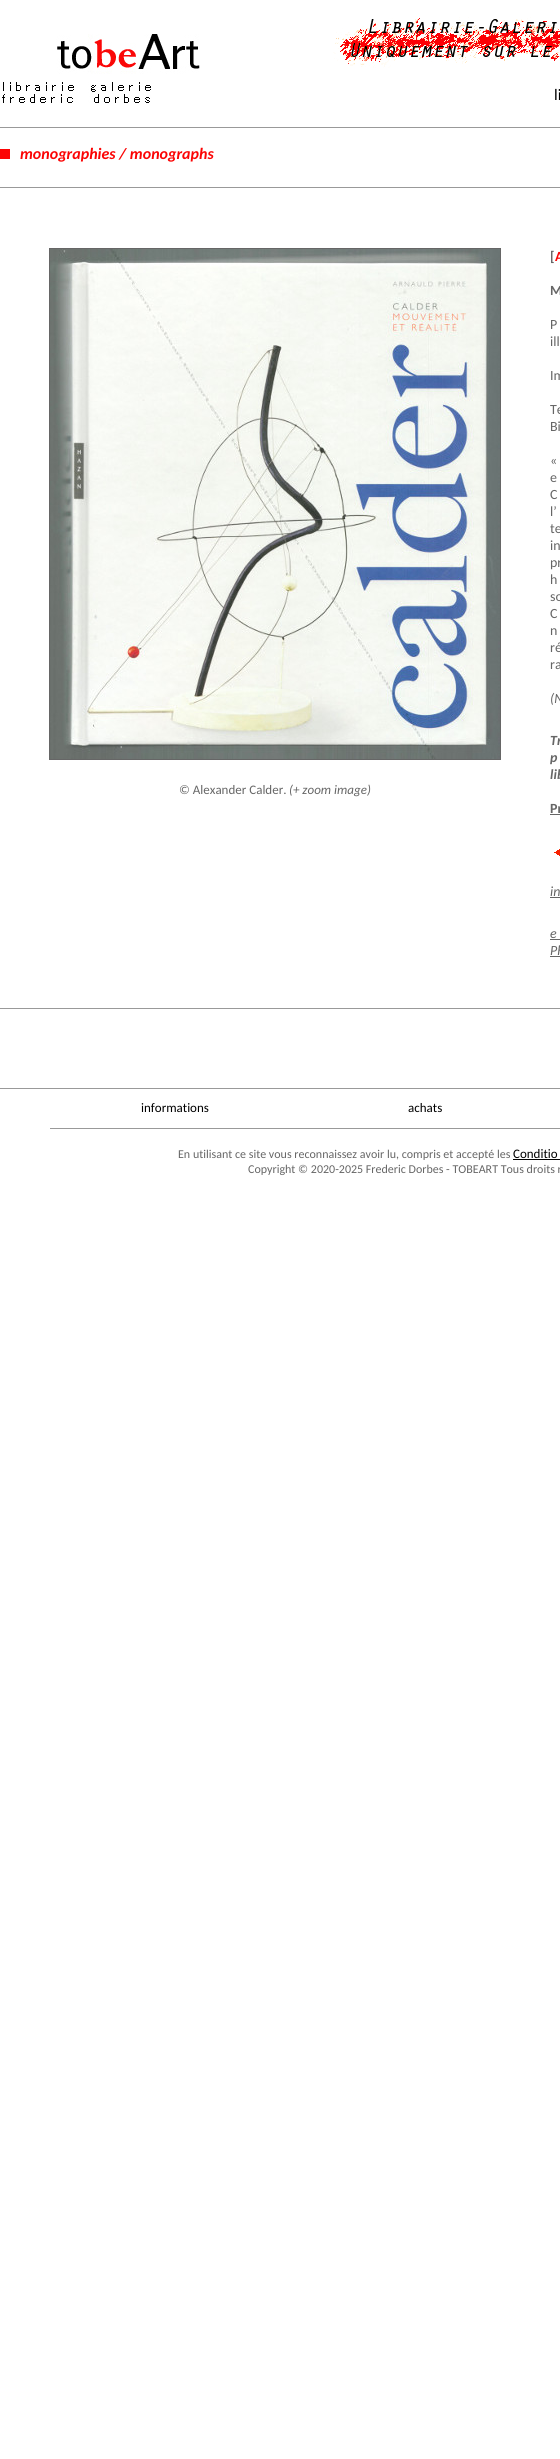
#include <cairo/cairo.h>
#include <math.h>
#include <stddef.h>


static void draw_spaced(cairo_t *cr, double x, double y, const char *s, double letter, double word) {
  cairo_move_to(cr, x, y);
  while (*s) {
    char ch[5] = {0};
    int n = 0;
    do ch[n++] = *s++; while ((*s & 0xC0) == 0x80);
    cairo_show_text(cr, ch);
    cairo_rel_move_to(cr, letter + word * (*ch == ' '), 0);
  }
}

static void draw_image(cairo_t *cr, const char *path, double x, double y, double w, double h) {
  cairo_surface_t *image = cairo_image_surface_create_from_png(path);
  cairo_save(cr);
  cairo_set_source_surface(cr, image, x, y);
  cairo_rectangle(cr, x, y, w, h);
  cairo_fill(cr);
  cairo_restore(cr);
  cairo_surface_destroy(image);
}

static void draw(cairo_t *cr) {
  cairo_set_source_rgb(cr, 1, 1, 1);
  cairo_paint(cr);
  draw_image(cr, "images/1.png", 2, 34, 198, 69);
  draw_image(cr, "images/2.png", 333, 17, 227, 51);
  cairo_set_source_rgb(cr, 153 / 255.0, 153 / 255.0, 153 / 255.0);
  cairo_rectangle(cr, 0, 127, 560, 1);
  cairo_fill(cr);
  cairo_set_source_rgb(cr, 252 / 255.0, 4 / 255.0, 4 / 255.0);
  cairo_rectangle(cr, 0, 149, 10, 10);
  cairo_fill(cr);
  cairo_set_source_rgb(cr, 153 / 255.0, 153 / 255.0, 153 / 255.0);
  cairo_rectangle(cr, 0, 187, 560, 1);
  cairo_fill(cr);
  cairo_rectangle(cr, 49.5, 248.5, 451, 511);
  cairo_set_source_rgb(cr, 102 / 255.0, 102 / 255.0, 102 / 255.0);
  cairo_set_line_width(cr, 1);
  cairo_stroke(cr);
  draw_image(cr, "images/3.png", 50, 249, 450, 510);
  cairo_rectangle(cr, 550, 814, 10, 1);
  cairo_fill(cr);
  draw_image(cr, "images/4.png", 554, 849, 6, 7);
  cairo_rectangle(cr, 550, 897, 10, 1);
  cairo_fill(cr);
  cairo_rectangle(cr, 550, 939, 10, 1);
  cairo_fill(cr);
  cairo_rectangle(cr, 550, 956, 10, 1);
  cairo_fill(cr);
  cairo_set_source_rgb(cr, 153 / 255.0, 153 / 255.0, 153 / 255.0);
  cairo_rectangle(cr, 0, 1008, 560, 1);
  cairo_fill(cr);
  cairo_rectangle(cr, 0, 1088, 560, 1);
  cairo_fill(cr);
  cairo_rectangle(cr, 50, 1128, 510, 1);
  cairo_fill(cr);
  cairo_set_source_rgb(cr, 0, 0, 0);
  cairo_rectangle(cr, 513, 1159, 47, 1);
  cairo_fill(cr);
  cairo_select_font_face(cr, "Carlito", CAIRO_FONT_SLANT_NORMAL, CAIRO_FONT_WEIGHT_NORMAL);
  cairo_set_font_size(cr, 16);
  cairo_move_to(cr, 554, 100);
  cairo_show_text(cr, "li");
  cairo_select_font_face(cr, "Carlito", CAIRO_FONT_SLANT_ITALIC, CAIRO_FONT_WEIGHT_BOLD);
  cairo_set_source_rgb(cr, 251 / 255.0, 4 / 255.0, 4 / 255.0);
  cairo_move_to(cr, 20, 159);
  cairo_show_text(cr, "monographies / monographs");
  cairo_select_font_face(cr, "Carlito", CAIRO_FONT_SLANT_NORMAL, CAIRO_FONT_WEIGHT_NORMAL);
  cairo_set_font_size(cr, 13);
  cairo_set_source_rgb(cr, 102 / 255.0, 102 / 255.0, 102 / 255.0);
  cairo_move_to(cr, 179, 794);
  cairo_show_text(cr, "© Alexander Calder.");
  cairo_select_font_face(cr, "Carlito", CAIRO_FONT_SLANT_ITALIC, CAIRO_FONT_WEIGHT_NORMAL);
  cairo_move_to(cr, 289, 794);
  cairo_show_text(cr, "(+ zoom image)");
  cairo_select_font_face(cr, "Carlito", CAIRO_FONT_SLANT_NORMAL, CAIRO_FONT_WEIGHT_BOLD);
  cairo_set_font_size(cr, 14);
  cairo_move_to(cr, 550, 261);
  cairo_show_text(cr, "[");
  cairo_set_source_rgb(cr, 251 / 255.0, 4 / 255.0, 4 / 255.0);
  cairo_move_to(cr, 555, 261);
  cairo_show_text(cr, "A");
  cairo_set_source_rgb(cr, 102 / 255.0, 102 / 255.0, 102 / 255.0);
  cairo_move_to(cr, 550, 295);
  cairo_show_text(cr, "M");
  cairo_select_font_face(cr, "Carlito", CAIRO_FONT_SLANT_NORMAL, CAIRO_FONT_WEIGHT_NORMAL);
  draw_spaced(cr, 550, 329, "P", 0, 8);
  cairo_move_to(cr, 550, 346);
  cairo_show_text(cr, "ill");
  cairo_move_to(cr, 550, 380);
  cairo_show_text(cr, "Im");
  cairo_move_to(cr, 550, 414);
  cairo_show_text(cr, "Te");
  cairo_move_to(cr, 550, 431);
  cairo_show_text(cr, "Bi");
  draw_spaced(cr, 550, 465, "«", 0, 6);
  draw_spaced(cr, 550, 482, "e", 0, 6);
  draw_spaced(cr, 550, 499, "C", 0, 8);
  draw_spaced(cr, 550, 516, "l’", 0, 6);
  draw_spaced(cr, 550, 533, "te", 0, 8);
  draw_spaced(cr, 550, 550, "in", 0, 3);
  draw_spaced(cr, 550, 567, "pr", 0, 1);
  draw_spaced(cr, 550, 584, "h", 0, 3);
  cairo_move_to(cr, 550, 601);
  cairo_show_text(cr, "so");
  draw_spaced(cr, 550, 618, "C", 0, 4);
  draw_spaced(cr, 550, 635, "n", 0, 3);
  draw_spaced(cr, 550, 652, "ré", 0, 7);
  cairo_move_to(cr, 550, 669);
  cairo_show_text(cr, "ra");
  cairo_select_font_face(cr, "Carlito", CAIRO_FONT_SLANT_ITALIC, CAIRO_FONT_WEIGHT_NORMAL);
  cairo_move_to(cr, 550, 703);
  cairo_show_text(cr, "(N");
  cairo_select_font_face(cr, "Carlito", CAIRO_FONT_SLANT_ITALIC, CAIRO_FONT_WEIGHT_BOLD);
  cairo_move_to(cr, 550, 745);
  cairo_show_text(cr, "Tr");
  cairo_move_to(cr, 550, 762);
  cairo_show_text(cr, "p");
  cairo_move_to(cr, 550, 779);
  cairo_show_text(cr, "lib");
  cairo_select_font_face(cr, "Carlito", CAIRO_FONT_SLANT_NORMAL, CAIRO_FONT_WEIGHT_BOLD);
  cairo_move_to(cr, 550, 813);
  cairo_show_text(cr, "Pr");
  cairo_select_font_face(cr, "Carlito", CAIRO_FONT_SLANT_ITALIC, CAIRO_FONT_WEIGHT_NORMAL);
  cairo_move_to(cr, 550, 896);
  cairo_show_text(cr, "in");
  cairo_move_to(cr, 550, 938);
  cairo_show_text(cr, "e");
  cairo_move_to(cr, 550, 955);
  cairo_show_text(cr, "Ph");
  cairo_select_font_face(cr, "Carlito", CAIRO_FONT_SLANT_NORMAL, CAIRO_FONT_WEIGHT_NORMAL);
  cairo_set_font_size(cr, 13);
  cairo_set_source_rgb(cr, 0, 0, 0);
  cairo_move_to(cr, 141, 1112);
  cairo_show_text(cr, "informations");
  cairo_move_to(cr, 408, 1112);
  cairo_show_text(cr, "achats");
  cairo_set_font_size(cr, 12);
  cairo_set_source_rgb(cr, 102 / 255.0, 102 / 255.0, 102 / 255.0);
  cairo_move_to(cr, 178, 1158);
  cairo_show_text(cr, "En utilisant ce site vous reconnaissez avoir lu, compris et accepté les");
  cairo_set_font_size(cr, 13);
  cairo_set_source_rgb(cr, 0, 0, 0);
  cairo_move_to(cr, 513, 1158);
  cairo_show_text(cr, "Conditio");
  cairo_set_font_size(cr, 12);
  cairo_set_source_rgb(cr, 102 / 255.0, 102 / 255.0, 102 / 255.0);
  cairo_move_to(cr, 248, 1173);
  cairo_show_text(cr, "Copyright © 2020-2025 Frederic Dorbes - TOBEART Tous droits r");
}

int main(void) {
  cairo_surface_t *surface = cairo_image_surface_create(CAIRO_FORMAT_RGB24, 560, 2459);
  cairo_t *cr = cairo_create(surface);
  cairo_font_options_t *options = cairo_font_options_create();
  cairo_font_options_set_hint_metrics(options, CAIRO_HINT_METRICS_OFF);
  cairo_font_options_set_hint_style(options, CAIRO_HINT_STYLE_NONE);
  cairo_set_font_options(cr, options);
  cairo_set_miter_limit(cr, 4);
  draw(cr);
  cairo_surface_write_to_png(surface, "out.png");
  cairo_font_options_destroy(options);
  cairo_destroy(cr);
  cairo_surface_destroy(surface);
  return 0;
}
